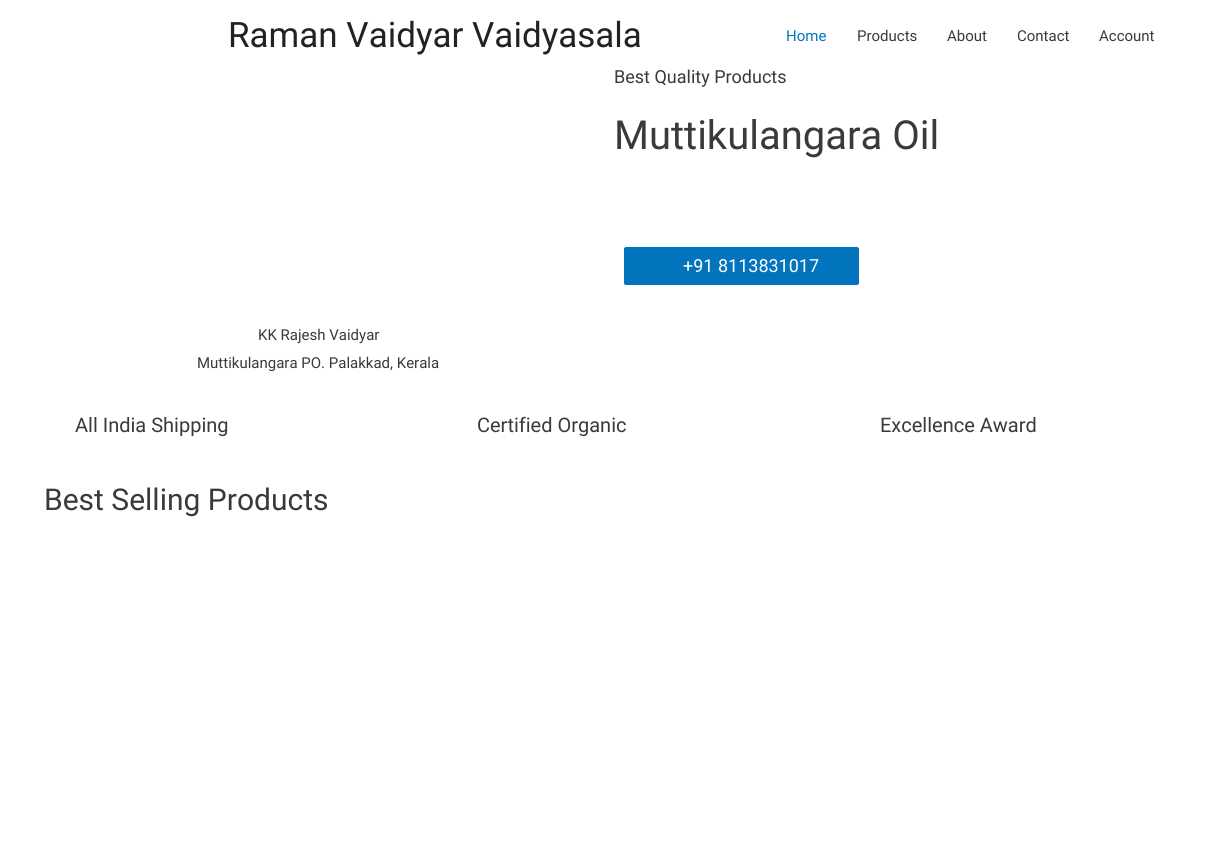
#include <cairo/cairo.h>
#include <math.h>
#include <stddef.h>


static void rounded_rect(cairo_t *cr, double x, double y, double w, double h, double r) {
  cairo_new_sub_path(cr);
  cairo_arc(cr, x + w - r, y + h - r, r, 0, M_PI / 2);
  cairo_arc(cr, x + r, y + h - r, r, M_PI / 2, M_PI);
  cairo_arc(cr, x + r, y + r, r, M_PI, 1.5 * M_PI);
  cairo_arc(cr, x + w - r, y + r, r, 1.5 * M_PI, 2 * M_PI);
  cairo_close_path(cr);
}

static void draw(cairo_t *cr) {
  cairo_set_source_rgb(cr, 1, 1, 1);
  cairo_paint(cr);
  cairo_set_source_rgb(cr, 2 / 255.0, 116 / 255.0, 190 / 255.0);
  rounded_rect(cr, 624, 247, 235, 38, 2);
  cairo_fill(cr);
  cairo_select_font_face(cr, "Roboto", CAIRO_FONT_SLANT_NORMAL, CAIRO_FONT_WEIGHT_NORMAL);
  cairo_set_font_size(cr, 35);
  cairo_set_source_rgb(cr, 34 / 255.0, 34 / 255.0, 34 / 255.0);
  cairo_move_to(cr, 228, 47);
  cairo_show_text(cr, "Raman Vaidyar Vaidyasala");
  cairo_set_font_size(cr, 15);
  cairo_set_source_rgb(cr, 2 / 255.0, 116 / 255.0, 190 / 255.0);
  cairo_move_to(cr, 786, 41);
  cairo_show_text(cr, "Home");
  cairo_set_source_rgb(cr, 58 / 255.0, 58 / 255.0, 58 / 255.0);
  cairo_move_to(cr, 857, 41);
  cairo_show_text(cr, "Products");
  cairo_move_to(cr, 947, 41);
  cairo_show_text(cr, "About");
  cairo_move_to(cr, 1017, 41);
  cairo_show_text(cr, "Contact");
  cairo_move_to(cr, 1099, 41);
  cairo_show_text(cr, "Account");
  cairo_set_font_size(cr, 18);
  cairo_move_to(cr, 614, 83);
  cairo_show_text(cr, "Best Quality Products");
  cairo_set_font_size(cr, 40);
  cairo_move_to(cr, 614, 149);
  cairo_show_text(cr, "Muttikulangara Oil");
  cairo_set_font_size(cr, 18);
  cairo_set_source_rgb(cr, 1, 1, 1);
  cairo_move_to(cr, 683, 272);
  cairo_show_text(cr, "+91 8113831017");
  cairo_set_font_size(cr, 15);
  cairo_set_source_rgb(cr, 58 / 255.0, 58 / 255.0, 58 / 255.0);
  cairo_move_to(cr, 258, 340);
  cairo_show_text(cr, "KK Rajesh Vaidyar");
  cairo_move_to(cr, 197, 368);
  cairo_show_text(cr, "Muttikulangara PO. Palakkad, Kerala");
  cairo_set_font_size(cr, 20);
  cairo_move_to(cr, 75, 432);
  cairo_show_text(cr, "All India Shipping");
  cairo_move_to(cr, 477, 432);
  cairo_show_text(cr, "Certified Organic");
  cairo_move_to(cr, 880, 432);
  cairo_show_text(cr, "Excellence Award");
  cairo_set_font_size(cr, 30);
  cairo_move_to(cr, 44, 510);
  cairo_show_text(cr, "Best Selling Products");
}

int main(void) {
  cairo_surface_t *surface = cairo_image_surface_create(CAIRO_FORMAT_RGB24, 1207, 841);
  cairo_t *cr = cairo_create(surface);
  cairo_font_options_t *options = cairo_font_options_create();
  cairo_font_options_set_hint_metrics(options, CAIRO_HINT_METRICS_OFF);
  cairo_font_options_set_hint_style(options, CAIRO_HINT_STYLE_NONE);
  cairo_set_font_options(cr, options);
  cairo_set_miter_limit(cr, 4);
  draw(cr);
  cairo_surface_write_to_png(surface, "out.png");
  cairo_font_options_destroy(options);
  cairo_destroy(cr);
  cairo_surface_destroy(surface);
  return 0;
}
